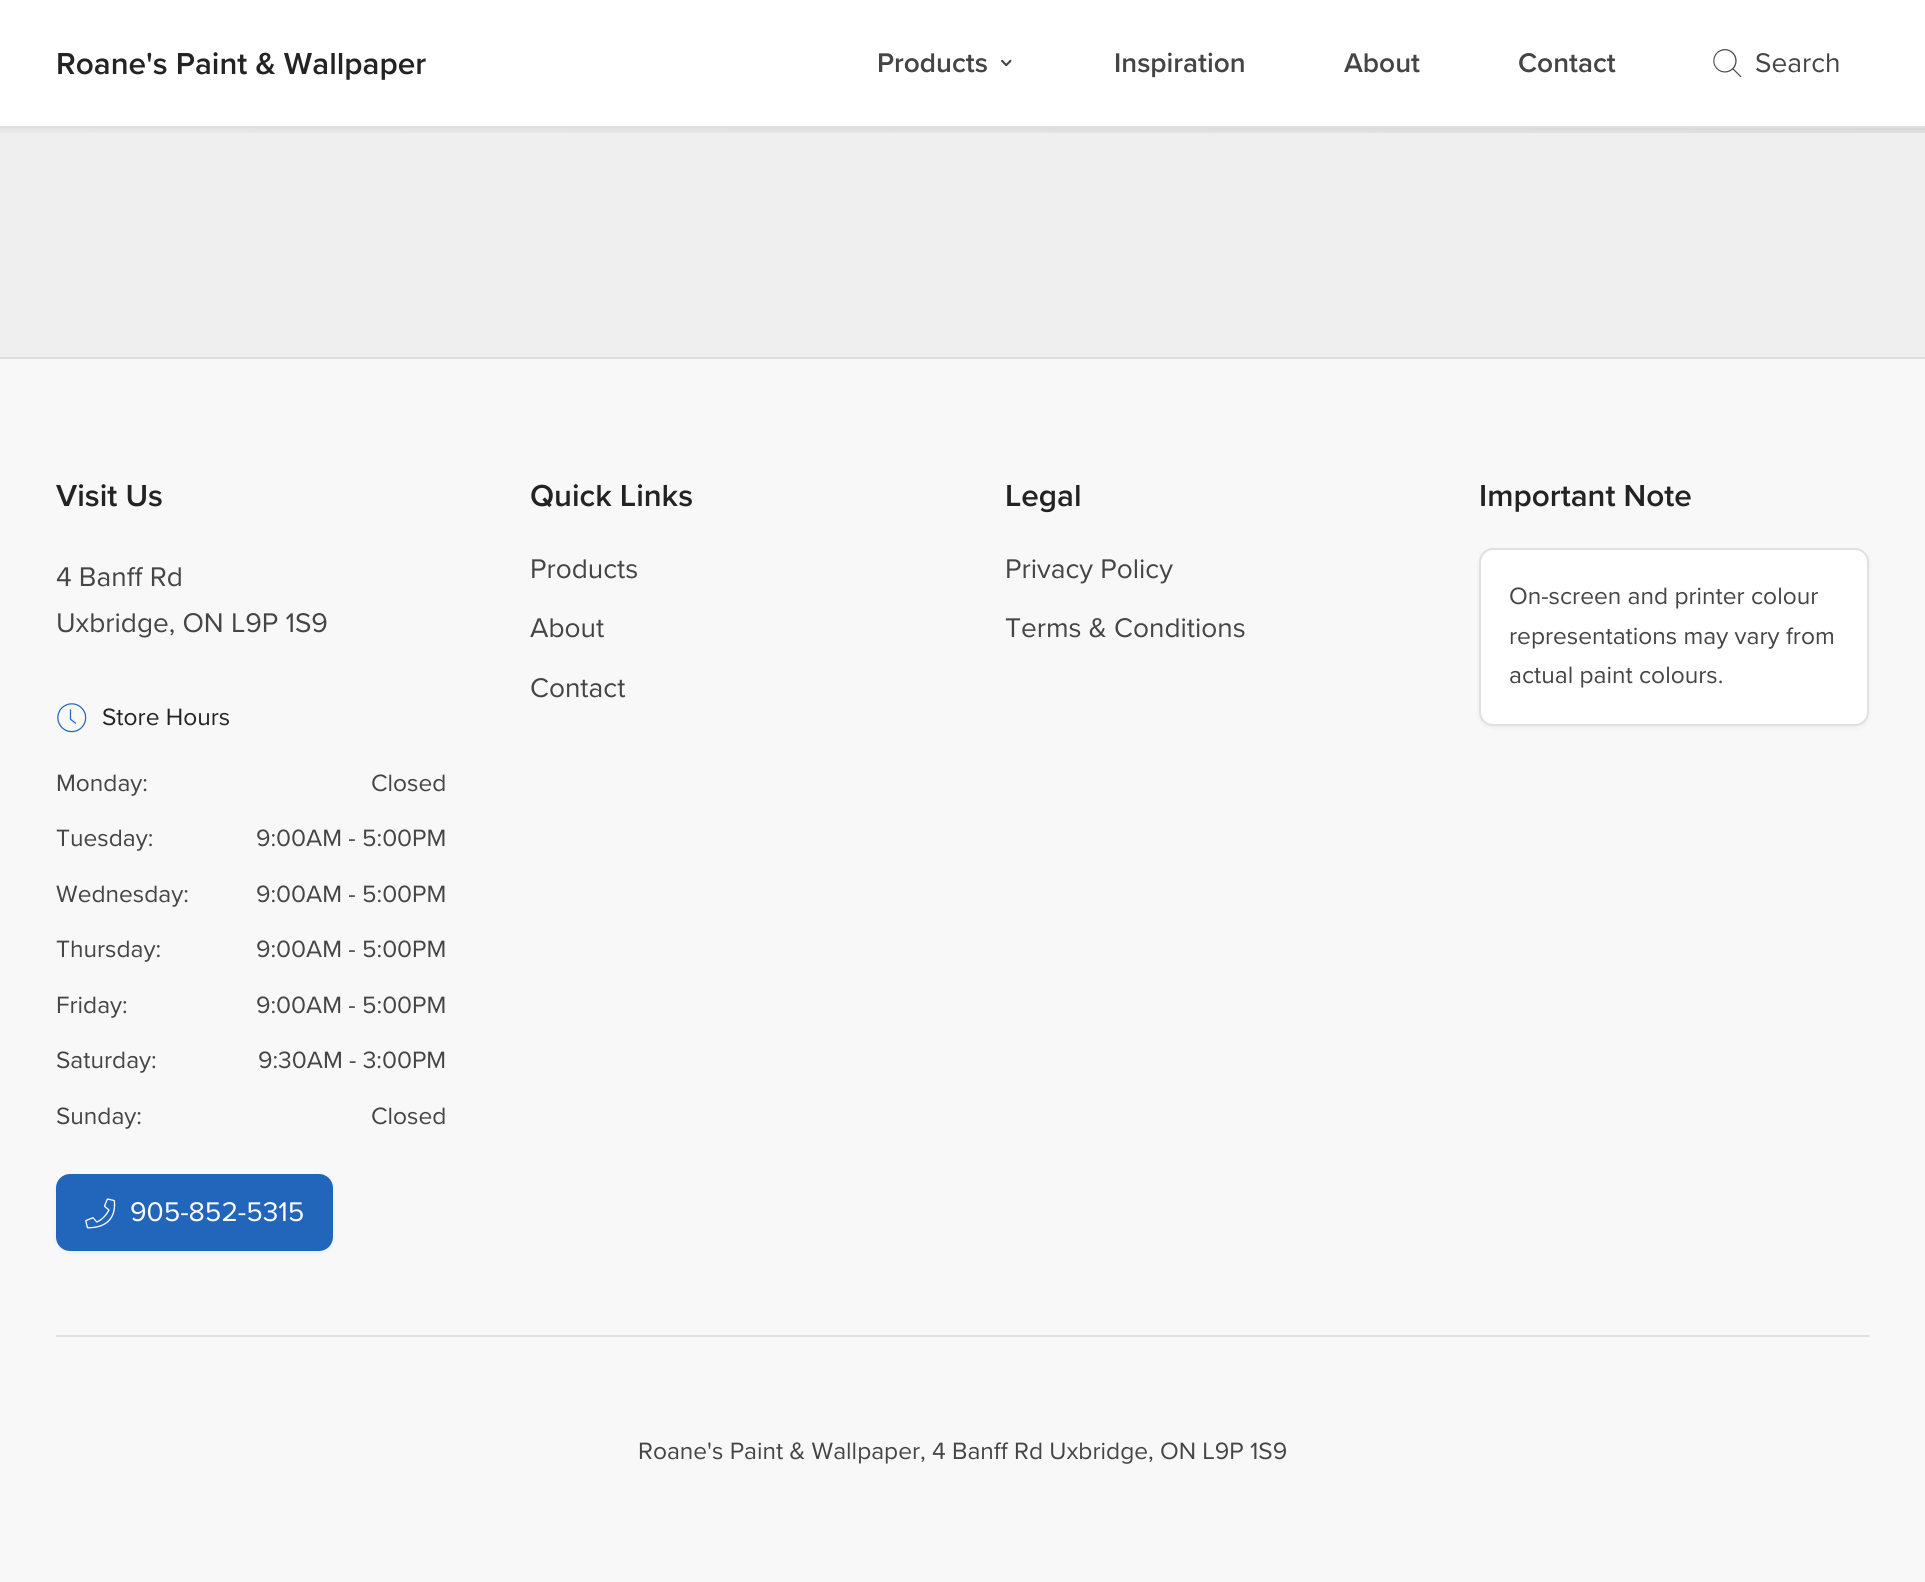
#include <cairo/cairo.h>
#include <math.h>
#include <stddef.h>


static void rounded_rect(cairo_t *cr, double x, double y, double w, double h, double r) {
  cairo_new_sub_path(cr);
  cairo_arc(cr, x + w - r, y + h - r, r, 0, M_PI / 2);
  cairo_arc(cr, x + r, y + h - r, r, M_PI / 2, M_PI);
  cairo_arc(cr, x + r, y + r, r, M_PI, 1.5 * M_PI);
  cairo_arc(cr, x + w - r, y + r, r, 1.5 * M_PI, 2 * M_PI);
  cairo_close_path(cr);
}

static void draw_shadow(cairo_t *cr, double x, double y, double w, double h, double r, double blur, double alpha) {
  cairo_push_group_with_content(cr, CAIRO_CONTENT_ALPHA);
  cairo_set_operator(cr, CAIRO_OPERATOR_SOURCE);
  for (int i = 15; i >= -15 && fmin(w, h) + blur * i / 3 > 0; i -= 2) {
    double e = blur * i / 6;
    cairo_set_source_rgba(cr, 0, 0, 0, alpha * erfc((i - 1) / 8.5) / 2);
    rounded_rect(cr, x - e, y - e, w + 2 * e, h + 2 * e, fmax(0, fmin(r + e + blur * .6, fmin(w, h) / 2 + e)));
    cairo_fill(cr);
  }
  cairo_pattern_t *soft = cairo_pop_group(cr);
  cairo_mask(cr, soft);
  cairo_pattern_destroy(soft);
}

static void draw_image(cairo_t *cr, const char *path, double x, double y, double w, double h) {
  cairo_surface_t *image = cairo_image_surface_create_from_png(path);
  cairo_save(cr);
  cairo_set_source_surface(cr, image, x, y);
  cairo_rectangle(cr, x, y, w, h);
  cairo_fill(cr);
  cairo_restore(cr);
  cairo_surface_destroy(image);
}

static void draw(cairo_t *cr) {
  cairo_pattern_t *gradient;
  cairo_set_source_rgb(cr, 239 / 255.0, 239 / 255.0, 239 / 255.0);
  cairo_paint(cr);
  gradient = cairo_pattern_create_linear(765, -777, 1160, 392);
  cairo_pattern_add_color_stop_rgba(gradient, 0, 248 / 255.0, 248 / 255.0, 248 / 255.0, 1);
  cairo_pattern_add_color_stop_rgba(gradient, 1, 224 / 255.0, 224 / 255.0, 224 / 255.0, 1);
  cairo_set_source(cr, gradient);
  cairo_pattern_destroy(gradient);
  cairo_rectangle(cr, 0, 128, 1925, 5);
  cairo_fill(cr);
  cairo_set_source_rgb(cr, 0, 0, 0);
  draw_shadow(cr, 0, 2, 1925, 128, 0, 2, 0.05);
  cairo_set_source_rgb(cr, 1, 1, 1);
  cairo_rectangle(cr, 0, 0, 1925, 126);
  cairo_fill(cr);
  cairo_set_source_rgb(cr, 224 / 255.0, 224 / 255.0, 224 / 255.0);
  cairo_rectangle(cr, 0, 126, 1925, 2);
  cairo_fill(cr);
  draw_image(cr, "images/1.png", 1001, 59, 11, 8);
  draw_image(cr, "images/2.png", 1713, 49, 29, 28);
  cairo_set_source_rgb(cr, 248 / 255.0, 248 / 255.0, 248 / 255.0);
  cairo_rectangle(cr, 0, 359, 1925, 1223);
  cairo_fill(cr);
  cairo_set_source_rgb(cr, 224 / 255.0, 224 / 255.0, 224 / 255.0);
  cairo_rectangle(cr, 0, 357, 1925, 2);
  cairo_fill(cr);
  draw_image(cr, "images/3.png", 57, 703, 30, 30);
  cairo_set_source_rgb(cr, 0, 0, 0);
  draw_shadow(cr, 56, 1176, 277, 77, 14, 2, 0.05);
  cairo_set_source_rgb(cr, 34 / 255.0, 102 / 255.0, 187 / 255.0);
  rounded_rect(cr, 56, 1174, 277, 77, 14);
  cairo_fill(cr);
  draw_image(cr, "images/4.png", 85, 1198, 31, 31);
  cairo_set_source_rgb(cr, 0, 0, 0);
  draw_shadow(cr, 1479, 550, 390, 178, 14, 2, 0.05);
  cairo_set_source_rgb(cr, 1, 1, 1);
  rounded_rect(cr, 1480, 549, 388, 176, 13);
  cairo_fill_preserve(cr);
  cairo_set_source_rgb(cr, 224 / 255.0, 224 / 255.0, 224 / 255.0);
  cairo_stroke(cr);
  cairo_rectangle(cr, 56, 1335, 1813, 2);
  cairo_fill(cr);
  cairo_select_font_face(cr, "Proxima Nova SemiBold", CAIRO_FONT_SLANT_NORMAL, CAIRO_FONT_WEIGHT_NORMAL);
  cairo_set_font_size(cr, 31.5);
  cairo_set_source_rgb(cr, 35 / 255.0, 35 / 255.0, 35 / 255.0);
  cairo_move_to(cr, 56, 74);
  cairo_show_text(cr, "Roane's Paint & Wallpaper");
  cairo_set_font_size(cr, 28);
  cairo_set_source_rgb(cr, 69 / 255.0, 69 / 255.0, 69 / 255.0);
  cairo_move_to(cr, 877, 72);
  cairo_show_text(cr, "Products");
  cairo_move_to(cr, 1114, 72);
  cairo_show_text(cr, "Inspiration");
  cairo_move_to(cr, 1344, 72);
  cairo_show_text(cr, "About");
  cairo_move_to(cr, 1518, 72);
  cairo_show_text(cr, "Contact");
  cairo_select_font_face(cr, "Proxima Nova", CAIRO_FONT_SLANT_NORMAL, CAIRO_FONT_WEIGHT_NORMAL);
  cairo_move_to(cr, 1755, 72);
  cairo_show_text(cr, "Search");
  cairo_select_font_face(cr, "Proxima Nova SemiBold", CAIRO_FONT_SLANT_NORMAL, CAIRO_FONT_WEIGHT_NORMAL);
  cairo_set_font_size(cr, 31.5);
  cairo_set_source_rgb(cr, 35 / 255.0, 35 / 255.0, 35 / 255.0);
  cairo_move_to(cr, 56, 506);
  cairo_show_text(cr, "Visit Us");
  cairo_select_font_face(cr, "Proxima Nova", CAIRO_FONT_SLANT_NORMAL, CAIRO_FONT_WEIGHT_NORMAL);
  cairo_set_font_size(cr, 28);
  cairo_set_source_rgb(cr, 69 / 255.0, 69 / 255.0, 69 / 255.0);
  cairo_move_to(cr, 56, 586);
  cairo_show_text(cr, "4 Banff Rd");
  cairo_move_to(cr, 56, 632);
  cairo_show_text(cr, "Uxbridge, ON L9P 1S9");
  cairo_set_font_size(cr, 24.5);
  cairo_set_source_rgb(cr, 35 / 255.0, 35 / 255.0, 35 / 255.0);
  cairo_move_to(cr, 102, 725);
  cairo_show_text(cr, "Store Hours");
  cairo_set_source_rgb(cr, 69 / 255.0, 69 / 255.0, 69 / 255.0);
  cairo_move_to(cr, 56, 791);
  cairo_show_text(cr, "Monday:");
  cairo_move_to(cr, 371, 791);
  cairo_show_text(cr, "Closed");
  cairo_move_to(cr, 56, 846);
  cairo_show_text(cr, "Tuesday:");
  cairo_move_to(cr, 256, 846);
  cairo_show_text(cr, "9:00AM - 5:00PM");
  cairo_move_to(cr, 56, 902);
  cairo_show_text(cr, "Wednesday:");
  cairo_move_to(cr, 256, 902);
  cairo_show_text(cr, "9:00AM - 5:00PM");
  cairo_move_to(cr, 56, 957);
  cairo_show_text(cr, "Thursday:");
  cairo_move_to(cr, 256, 957);
  cairo_show_text(cr, "9:00AM - 5:00PM");
  cairo_move_to(cr, 56, 1013);
  cairo_show_text(cr, "Friday:");
  cairo_move_to(cr, 256, 1013);
  cairo_show_text(cr, "9:00AM - 5:00PM");
  cairo_move_to(cr, 56, 1068);
  cairo_show_text(cr, "Saturday:");
  cairo_move_to(cr, 258, 1068);
  cairo_show_text(cr, "9:30AM - 3:00PM");
  cairo_move_to(cr, 56, 1124);
  cairo_show_text(cr, "Sunday:");
  cairo_move_to(cr, 371, 1124);
  cairo_show_text(cr, "Closed");
  cairo_set_font_size(cr, 28);
  cairo_set_source_rgb(cr, 1, 1, 1);
  cairo_move_to(cr, 130, 1221);
  cairo_show_text(cr, "905-852-5315");
  cairo_select_font_face(cr, "Proxima Nova SemiBold", CAIRO_FONT_SLANT_NORMAL, CAIRO_FONT_WEIGHT_NORMAL);
  cairo_set_font_size(cr, 31.5);
  cairo_set_source_rgb(cr, 35 / 255.0, 35 / 255.0, 35 / 255.0);
  cairo_move_to(cr, 530, 506);
  cairo_show_text(cr, "Quick Links");
  cairo_select_font_face(cr, "Proxima Nova", CAIRO_FONT_SLANT_NORMAL, CAIRO_FONT_WEIGHT_NORMAL);
  cairo_set_font_size(cr, 28);
  cairo_set_source_rgb(cr, 69 / 255.0, 69 / 255.0, 69 / 255.0);
  cairo_move_to(cr, 530, 578);
  cairo_show_text(cr, "Products");
  cairo_move_to(cr, 530, 637);
  cairo_show_text(cr, "About");
  cairo_move_to(cr, 530, 697);
  cairo_show_text(cr, "Contact");
  cairo_select_font_face(cr, "Proxima Nova SemiBold", CAIRO_FONT_SLANT_NORMAL, CAIRO_FONT_WEIGHT_NORMAL);
  cairo_set_font_size(cr, 31.5);
  cairo_set_source_rgb(cr, 35 / 255.0, 35 / 255.0, 35 / 255.0);
  cairo_move_to(cr, 1005, 506);
  cairo_show_text(cr, "Legal");
  cairo_select_font_face(cr, "Proxima Nova", CAIRO_FONT_SLANT_NORMAL, CAIRO_FONT_WEIGHT_NORMAL);
  cairo_set_font_size(cr, 28);
  cairo_set_source_rgb(cr, 69 / 255.0, 69 / 255.0, 69 / 255.0);
  cairo_move_to(cr, 1005, 578);
  cairo_show_text(cr, "Privacy Policy");
  cairo_move_to(cr, 1005, 637);
  cairo_show_text(cr, "Terms & Conditions");
  cairo_select_font_face(cr, "Proxima Nova SemiBold", CAIRO_FONT_SLANT_NORMAL, CAIRO_FONT_WEIGHT_NORMAL);
  cairo_set_font_size(cr, 31.5);
  cairo_set_source_rgb(cr, 35 / 255.0, 35 / 255.0, 35 / 255.0);
  cairo_move_to(cr, 1479, 506);
  cairo_show_text(cr, "Important Note");
  cairo_select_font_face(cr, "Proxima Nova", CAIRO_FONT_SLANT_NORMAL, CAIRO_FONT_WEIGHT_NORMAL);
  cairo_set_font_size(cr, 24.5);
  cairo_set_source_rgb(cr, 69 / 255.0, 69 / 255.0, 69 / 255.0);
  cairo_move_to(cr, 1509, 604);
  cairo_show_text(cr, "On-screen and printer colour");
  cairo_move_to(cr, 1509, 644);
  cairo_show_text(cr, "representations may vary from");
  cairo_move_to(cr, 1509, 683);
  cairo_show_text(cr, "actual paint colours.");
  cairo_move_to(cr, 638, 1459);
  cairo_show_text(cr, "Roane's Paint & Wallpaper, 4 Banff Rd Uxbridge, ON L9P 1S9");
}

int main(void) {
  cairo_surface_t *surface = cairo_image_surface_create(CAIRO_FORMAT_RGB24, 1925, 1582);
  cairo_t *cr = cairo_create(surface);
  cairo_font_options_t *options = cairo_font_options_create();
  cairo_font_options_set_hint_metrics(options, CAIRO_HINT_METRICS_OFF);
  cairo_font_options_set_hint_style(options, CAIRO_HINT_STYLE_NONE);
  cairo_set_font_options(cr, options);
  cairo_set_miter_limit(cr, 4);
  draw(cr);
  cairo_surface_write_to_png(surface, "out.png");
  cairo_font_options_destroy(options);
  cairo_destroy(cr);
  cairo_surface_destroy(surface);
  return 0;
}
